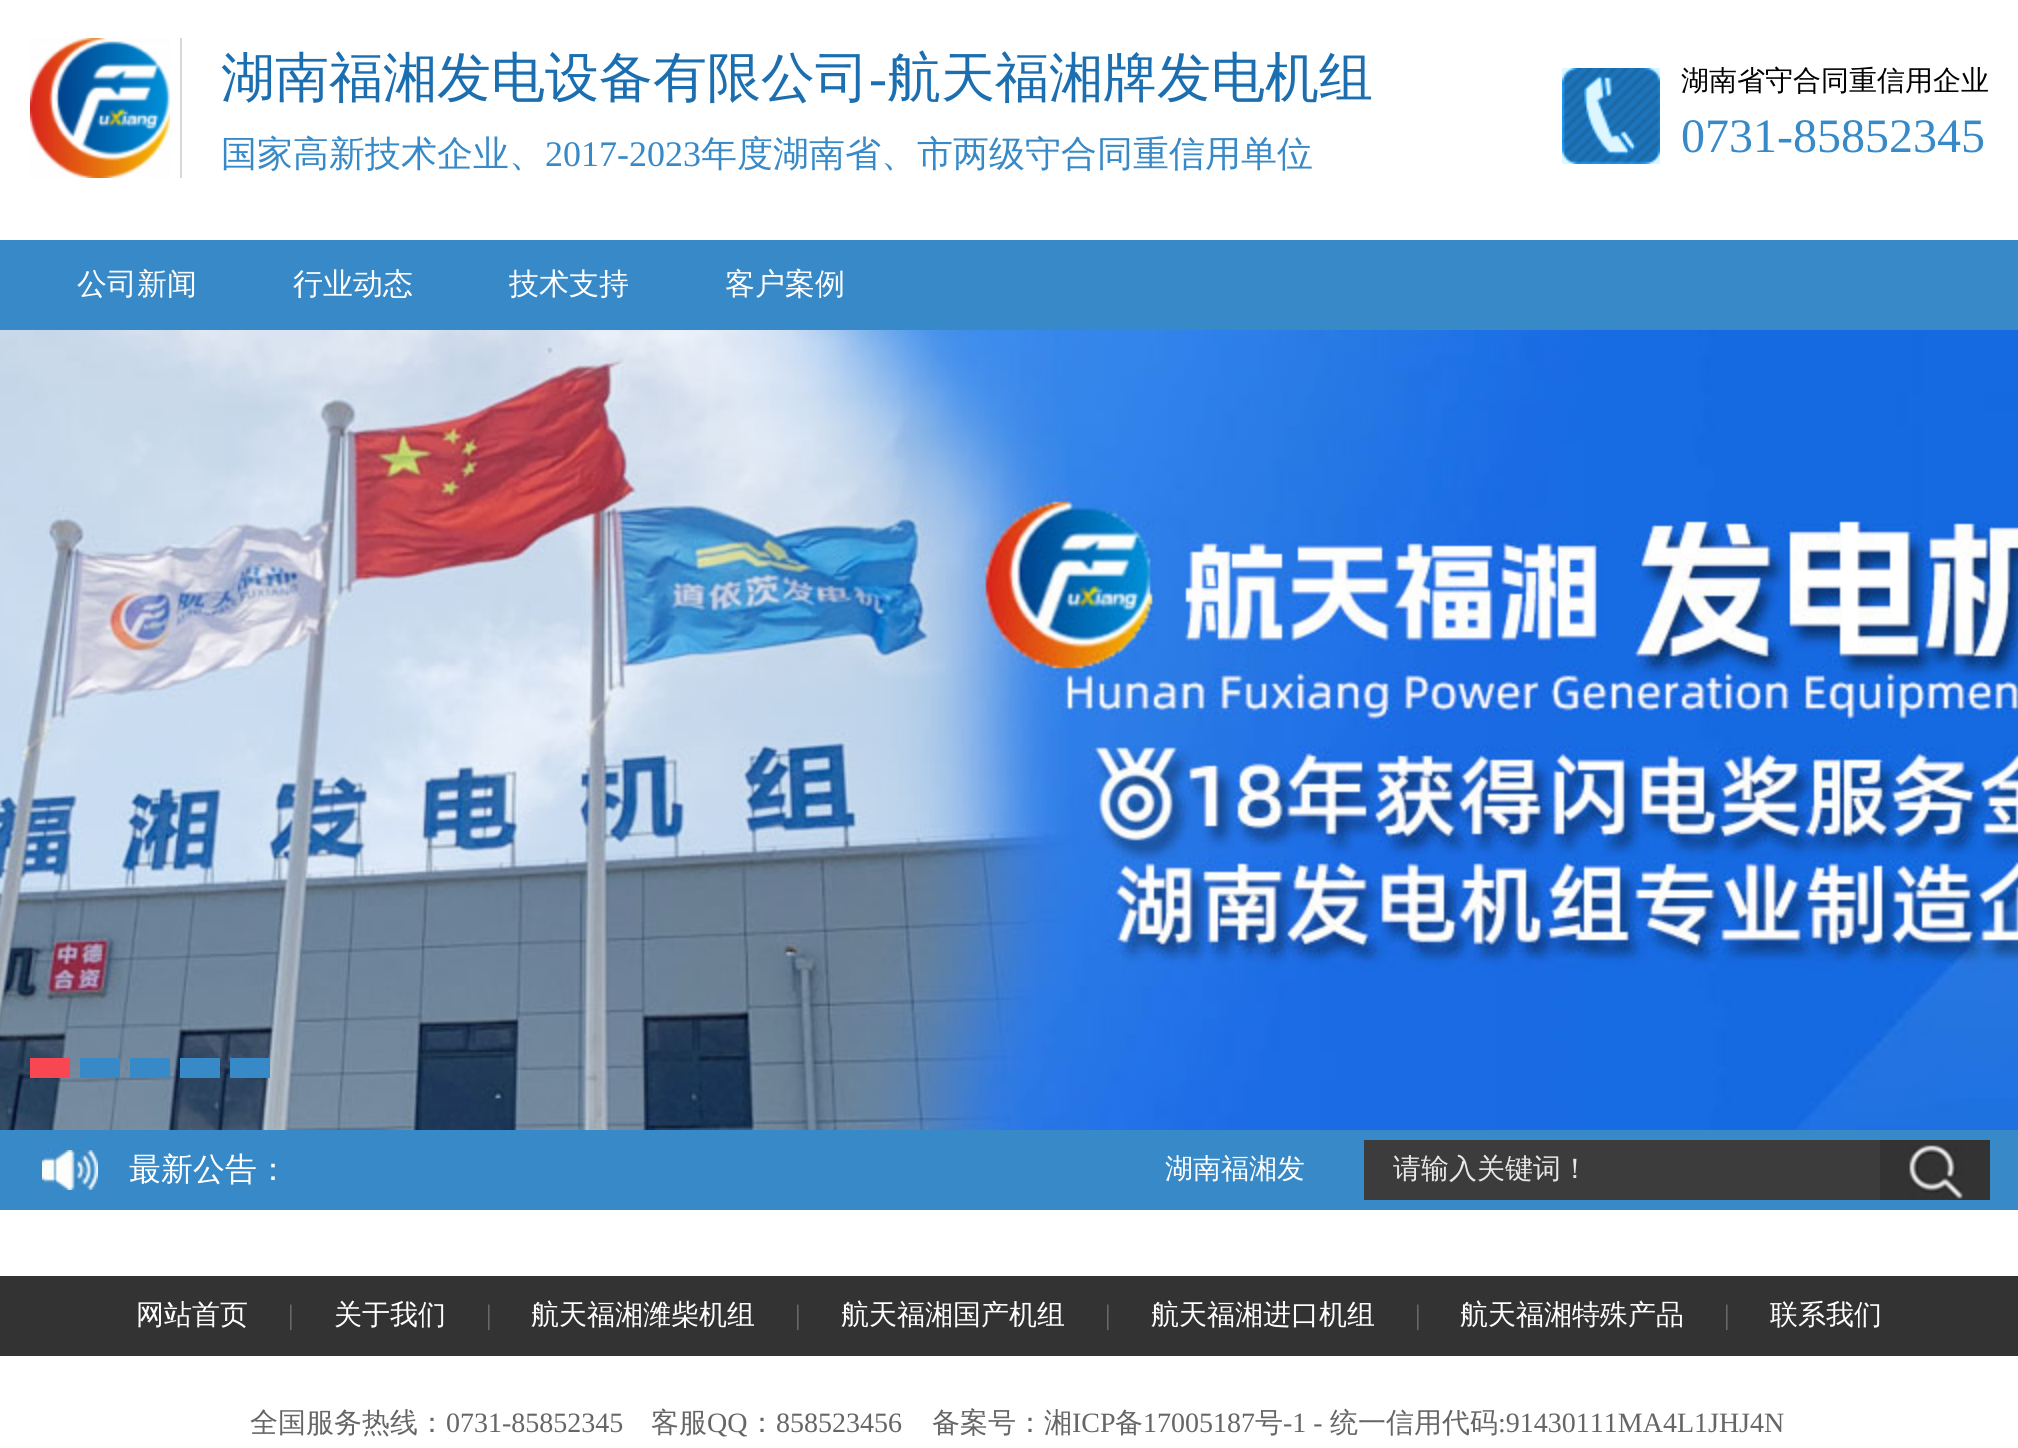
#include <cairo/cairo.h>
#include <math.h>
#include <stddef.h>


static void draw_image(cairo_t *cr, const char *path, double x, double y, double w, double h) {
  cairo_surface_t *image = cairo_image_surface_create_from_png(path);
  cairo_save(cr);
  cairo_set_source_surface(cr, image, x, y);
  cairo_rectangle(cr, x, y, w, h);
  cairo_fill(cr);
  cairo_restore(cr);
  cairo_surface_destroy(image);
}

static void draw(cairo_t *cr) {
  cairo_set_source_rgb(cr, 1, 1, 1);
  cairo_paint(cr);
  cairo_set_source_rgb(cr, 216 / 255.0, 216 / 255.0, 216 / 255.0);
  cairo_rectangle(cr, 180, 38, 2, 140);
  cairo_fill(cr);
  draw_image(cr, "images/1.png", 30, 38, 140, 140);
  draw_image(cr, "images/2.png", 1562, 68, 98, 96);
  cairo_set_source_rgb(cr, 56 / 255.0, 137 / 255.0, 199 / 255.0);
  cairo_rectangle(cr, 0, 240, 2018, 90);
  cairo_fill(cr);
  draw_image(cr, "images/3.png", 0, 330, 2018, 800);
  cairo_set_source_rgb(cr, 248 / 255.0, 70 / 255.0, 83 / 255.0);
  cairo_rectangle(cr, 30, 1058, 40, 20);
  cairo_fill(cr);
  cairo_set_source_rgb(cr, 56 / 255.0, 137 / 255.0, 199 / 255.0);
  cairo_rectangle(cr, 80, 1058, 40, 20);
  cairo_fill(cr);
  cairo_rectangle(cr, 130, 1058, 40, 20);
  cairo_fill(cr);
  cairo_rectangle(cr, 180, 1058, 40, 20);
  cairo_fill(cr);
  cairo_rectangle(cr, 230, 1058, 40, 20);
  cairo_fill(cr);
  cairo_rectangle(cr, 0, 1130, 2018, 80);
  cairo_fill(cr);
  draw_image(cr, "images/4.png", 42, 1150, 56, 40);
  cairo_set_source_rgb(cr, 60 / 255.0, 60 / 255.0, 60 / 255.0);
  cairo_rectangle(cr, 1364, 1140, 516, 60);
  cairo_fill(cr);
  cairo_set_source_rgb(cr, 51 / 255.0, 51 / 255.0, 51 / 255.0);
  cairo_rectangle(cr, 1880, 1140, 110, 60);
  cairo_fill(cr);
  draw_image(cr, "images/5.png", 1909, 1145, 54, 54);
  cairo_rectangle(cr, 0, 1276, 2018, 80);
  cairo_fill(cr);
  cairo_select_font_face(cr, "WenQuanYi Zen Hei Medium", CAIRO_FONT_SLANT_NORMAL, CAIRO_FONT_WEIGHT_NORMAL);
  cairo_set_font_size(cr, 54);
  cairo_set_source_rgb(cr, 27 / 255.0, 111 / 255.0, 176 / 255.0);
  cairo_move_to(cr, 221, 96);
  cairo_show_text(cr, "湖南福湘发电设备有限公司");
  cairo_select_font_face(cr, "Liberation Serif", CAIRO_FONT_SLANT_NORMAL, CAIRO_FONT_WEIGHT_NORMAL);
  cairo_move_to(cr, 869, 96);
  cairo_show_text(cr, "-");
  cairo_select_font_face(cr, "WenQuanYi Zen Hei Medium", CAIRO_FONT_SLANT_NORMAL, CAIRO_FONT_WEIGHT_NORMAL);
  cairo_move_to(cr, 887, 96);
  cairo_show_text(cr, "航天福湘牌发电机组");
  cairo_set_font_size(cr, 36);
  cairo_set_source_rgb(cr, 56 / 255.0, 137 / 255.0, 199 / 255.0);
  cairo_move_to(cr, 221, 166);
  cairo_show_text(cr, "国家高新技术企业、");
  cairo_select_font_face(cr, "Liberation Serif", CAIRO_FONT_SLANT_NORMAL, CAIRO_FONT_WEIGHT_NORMAL);
  cairo_move_to(cr, 545, 166);
  cairo_show_text(cr, "2017-2023");
  cairo_select_font_face(cr, "WenQuanYi Zen Hei Medium", CAIRO_FONT_SLANT_NORMAL, CAIRO_FONT_WEIGHT_NORMAL);
  cairo_move_to(cr, 701, 166);
  cairo_show_text(cr, "年度湖南省、市两级守合同重信用单位");
  cairo_set_font_size(cr, 28);
  cairo_set_source_rgb(cr, 0, 0, 0);
  cairo_move_to(cr, 1681, 90);
  cairo_show_text(cr, "湖南省守合同重信用企业");
  cairo_select_font_face(cr, "Liberation Serif", CAIRO_FONT_SLANT_NORMAL, CAIRO_FONT_WEIGHT_NORMAL);
  cairo_set_font_size(cr, 48);
  cairo_set_source_rgb(cr, 56 / 255.0, 137 / 255.0, 199 / 255.0);
  cairo_move_to(cr, 1681, 152);
  cairo_show_text(cr, "0731-85852345");
  cairo_select_font_face(cr, "WenQuanYi Zen Hei Medium", CAIRO_FONT_SLANT_NORMAL, CAIRO_FONT_WEIGHT_NORMAL);
  cairo_set_font_size(cr, 30);
  cairo_set_source_rgb(cr, 1, 1, 1);
  cairo_move_to(cr, 77, 294);
  cairo_show_text(cr, "公司新闻");
  cairo_move_to(cr, 293, 294);
  cairo_show_text(cr, "行业动态");
  cairo_move_to(cr, 509, 294);
  cairo_show_text(cr, "技术支持");
  cairo_move_to(cr, 725, 294);
  cairo_show_text(cr, "客户案例");
  cairo_set_font_size(cr, 32);
  cairo_move_to(cr, 129, 1180);
  cairo_show_text(cr, "最新公告：");
  cairo_set_font_size(cr, 28);
  cairo_move_to(cr, 1165, 1178);
  cairo_show_text(cr, "湖南福湘发");
  cairo_set_source_rgb(cr, 231 / 255.0, 231 / 255.0, 231 / 255.0);
  cairo_move_to(cr, 1393, 1178);
  cairo_show_text(cr, "请输入关键词！");
  cairo_set_source_rgb(cr, 1, 1, 1);
  cairo_move_to(cr, 136, 1324);
  cairo_show_text(cr, "网站首页");
  cairo_select_font_face(cr, "Liberation Serif", CAIRO_FONT_SLANT_NORMAL, CAIRO_FONT_WEIGHT_NORMAL);
  cairo_set_source_rgb(cr, 111 / 255.0, 111 / 255.0, 111 / 255.0);
  cairo_move_to(cr, 288, 1324);
  cairo_show_text(cr, "|");
  cairo_select_font_face(cr, "WenQuanYi Zen Hei Medium", CAIRO_FONT_SLANT_NORMAL, CAIRO_FONT_WEIGHT_NORMAL);
  cairo_set_source_rgb(cr, 1, 1, 1);
  cairo_move_to(cr, 334, 1324);
  cairo_show_text(cr, "关于我们");
  cairo_select_font_face(cr, "Liberation Serif", CAIRO_FONT_SLANT_NORMAL, CAIRO_FONT_WEIGHT_NORMAL);
  cairo_set_source_rgb(cr, 111 / 255.0, 111 / 255.0, 111 / 255.0);
  cairo_move_to(cr, 486, 1324);
  cairo_show_text(cr, "|");
  cairo_select_font_face(cr, "WenQuanYi Zen Hei Medium", CAIRO_FONT_SLANT_NORMAL, CAIRO_FONT_WEIGHT_NORMAL);
  cairo_set_source_rgb(cr, 1, 1, 1);
  cairo_move_to(cr, 531, 1324);
  cairo_show_text(cr, "航天福湘潍柴机组");
  cairo_select_font_face(cr, "Liberation Serif", CAIRO_FONT_SLANT_NORMAL, CAIRO_FONT_WEIGHT_NORMAL);
  cairo_set_source_rgb(cr, 111 / 255.0, 111 / 255.0, 111 / 255.0);
  cairo_move_to(cr, 795, 1324);
  cairo_show_text(cr, "|");
  cairo_select_font_face(cr, "WenQuanYi Zen Hei Medium", CAIRO_FONT_SLANT_NORMAL, CAIRO_FONT_WEIGHT_NORMAL);
  cairo_set_source_rgb(cr, 1, 1, 1);
  cairo_move_to(cr, 841, 1324);
  cairo_show_text(cr, "航天福湘国产机组");
  cairo_select_font_face(cr, "Liberation Serif", CAIRO_FONT_SLANT_NORMAL, CAIRO_FONT_WEIGHT_NORMAL);
  cairo_set_source_rgb(cr, 111 / 255.0, 111 / 255.0, 111 / 255.0);
  cairo_move_to(cr, 1105, 1324);
  cairo_show_text(cr, "|");
  cairo_select_font_face(cr, "WenQuanYi Zen Hei Medium", CAIRO_FONT_SLANT_NORMAL, CAIRO_FONT_WEIGHT_NORMAL);
  cairo_set_source_rgb(cr, 1, 1, 1);
  cairo_move_to(cr, 1151, 1324);
  cairo_show_text(cr, "航天福湘进口机组");
  cairo_select_font_face(cr, "Liberation Serif", CAIRO_FONT_SLANT_NORMAL, CAIRO_FONT_WEIGHT_NORMAL);
  cairo_set_source_rgb(cr, 111 / 255.0, 111 / 255.0, 111 / 255.0);
  cairo_move_to(cr, 1415, 1324);
  cairo_show_text(cr, "|");
  cairo_select_font_face(cr, "WenQuanYi Zen Hei Medium", CAIRO_FONT_SLANT_NORMAL, CAIRO_FONT_WEIGHT_NORMAL);
  cairo_set_source_rgb(cr, 1, 1, 1);
  cairo_move_to(cr, 1460, 1324);
  cairo_show_text(cr, "航天福湘特殊产品");
  cairo_select_font_face(cr, "Liberation Serif", CAIRO_FONT_SLANT_NORMAL, CAIRO_FONT_WEIGHT_NORMAL);
  cairo_set_source_rgb(cr, 111 / 255.0, 111 / 255.0, 111 / 255.0);
  cairo_move_to(cr, 1724, 1324);
  cairo_show_text(cr, "|");
  cairo_select_font_face(cr, "WenQuanYi Zen Hei Medium", CAIRO_FONT_SLANT_NORMAL, CAIRO_FONT_WEIGHT_NORMAL);
  cairo_set_source_rgb(cr, 1, 1, 1);
  cairo_move_to(cr, 1770, 1324);
  cairo_show_text(cr, "联系我们");
  cairo_set_source_rgb(cr, 102 / 255.0, 102 / 255.0, 102 / 255.0);
  cairo_move_to(cr, 250, 1432);
  cairo_show_text(cr, "全国服务热线：");
  cairo_select_font_face(cr, "Liberation Serif", CAIRO_FONT_SLANT_NORMAL, CAIRO_FONT_WEIGHT_NORMAL);
  cairo_move_to(cr, 446, 1432);
  cairo_show_text(cr, "0731-85852345");
  cairo_select_font_face(cr, "WenQuanYi Zen Hei Medium", CAIRO_FONT_SLANT_NORMAL, CAIRO_FONT_WEIGHT_NORMAL);
  cairo_move_to(cr, 651, 1432);
  cairo_show_text(cr, "客服");
  cairo_select_font_face(cr, "Liberation Serif", CAIRO_FONT_SLANT_NORMAL, CAIRO_FONT_WEIGHT_NORMAL);
  cairo_move_to(cr, 707, 1432);
  cairo_show_text(cr, "QQ");
  cairo_select_font_face(cr, "WenQuanYi Zen Hei Medium", CAIRO_FONT_SLANT_NORMAL, CAIRO_FONT_WEIGHT_NORMAL);
  cairo_move_to(cr, 748, 1432);
  cairo_show_text(cr, "：");
  cairo_select_font_face(cr, "Liberation Serif", CAIRO_FONT_SLANT_NORMAL, CAIRO_FONT_WEIGHT_NORMAL);
  cairo_move_to(cr, 776, 1432);
  cairo_show_text(cr, "858523456");
  cairo_select_font_face(cr, "WenQuanYi Zen Hei Medium", CAIRO_FONT_SLANT_NORMAL, CAIRO_FONT_WEIGHT_NORMAL);
  cairo_move_to(cr, 932, 1432);
  cairo_show_text(cr, "备案号：湘");
  cairo_select_font_face(cr, "Liberation Serif", CAIRO_FONT_SLANT_NORMAL, CAIRO_FONT_WEIGHT_NORMAL);
  cairo_move_to(cr, 1072, 1432);
  cairo_show_text(cr, "ICP");
  cairo_select_font_face(cr, "WenQuanYi Zen Hei Medium", CAIRO_FONT_SLANT_NORMAL, CAIRO_FONT_WEIGHT_NORMAL);
  cairo_move_to(cr, 1115, 1432);
  cairo_show_text(cr, "备");
  cairo_select_font_face(cr, "Liberation Serif", CAIRO_FONT_SLANT_NORMAL, CAIRO_FONT_WEIGHT_NORMAL);
  cairo_move_to(cr, 1143, 1432);
  cairo_show_text(cr, "17005187");
  cairo_select_font_face(cr, "WenQuanYi Zen Hei Medium", CAIRO_FONT_SLANT_NORMAL, CAIRO_FONT_WEIGHT_NORMAL);
  cairo_move_to(cr, 1255, 1432);
  cairo_show_text(cr, "号");
  cairo_select_font_face(cr, "Liberation Serif", CAIRO_FONT_SLANT_NORMAL, CAIRO_FONT_WEIGHT_NORMAL);
  cairo_move_to(cr, 1283, 1432);
  cairo_show_text(cr, "-1 -");
  cairo_select_font_face(cr, "WenQuanYi Zen Hei Medium", CAIRO_FONT_SLANT_NORMAL, CAIRO_FONT_WEIGHT_NORMAL);
  cairo_move_to(cr, 1330, 1432);
  cairo_show_text(cr, "统一信用代码");
  cairo_select_font_face(cr, "Liberation Serif", CAIRO_FONT_SLANT_NORMAL, CAIRO_FONT_WEIGHT_NORMAL);
  cairo_move_to(cr, 1498, 1432);
  cairo_show_text(cr, ":91430111MA4L1JHJ4N");
}

int main(void) {
  cairo_surface_t *surface = cairo_image_surface_create(CAIRO_FORMAT_RGB24, 2018, 1448);
  cairo_t *cr = cairo_create(surface);
  cairo_font_options_t *options = cairo_font_options_create();
  cairo_font_options_set_hint_metrics(options, CAIRO_HINT_METRICS_OFF);
  cairo_font_options_set_hint_style(options, CAIRO_HINT_STYLE_NONE);
  cairo_set_font_options(cr, options);
  cairo_set_miter_limit(cr, 4);
  draw(cr);
  cairo_surface_write_to_png(surface, "out.png");
  cairo_font_options_destroy(options);
  cairo_destroy(cr);
  cairo_surface_destroy(surface);
  return 0;
}
